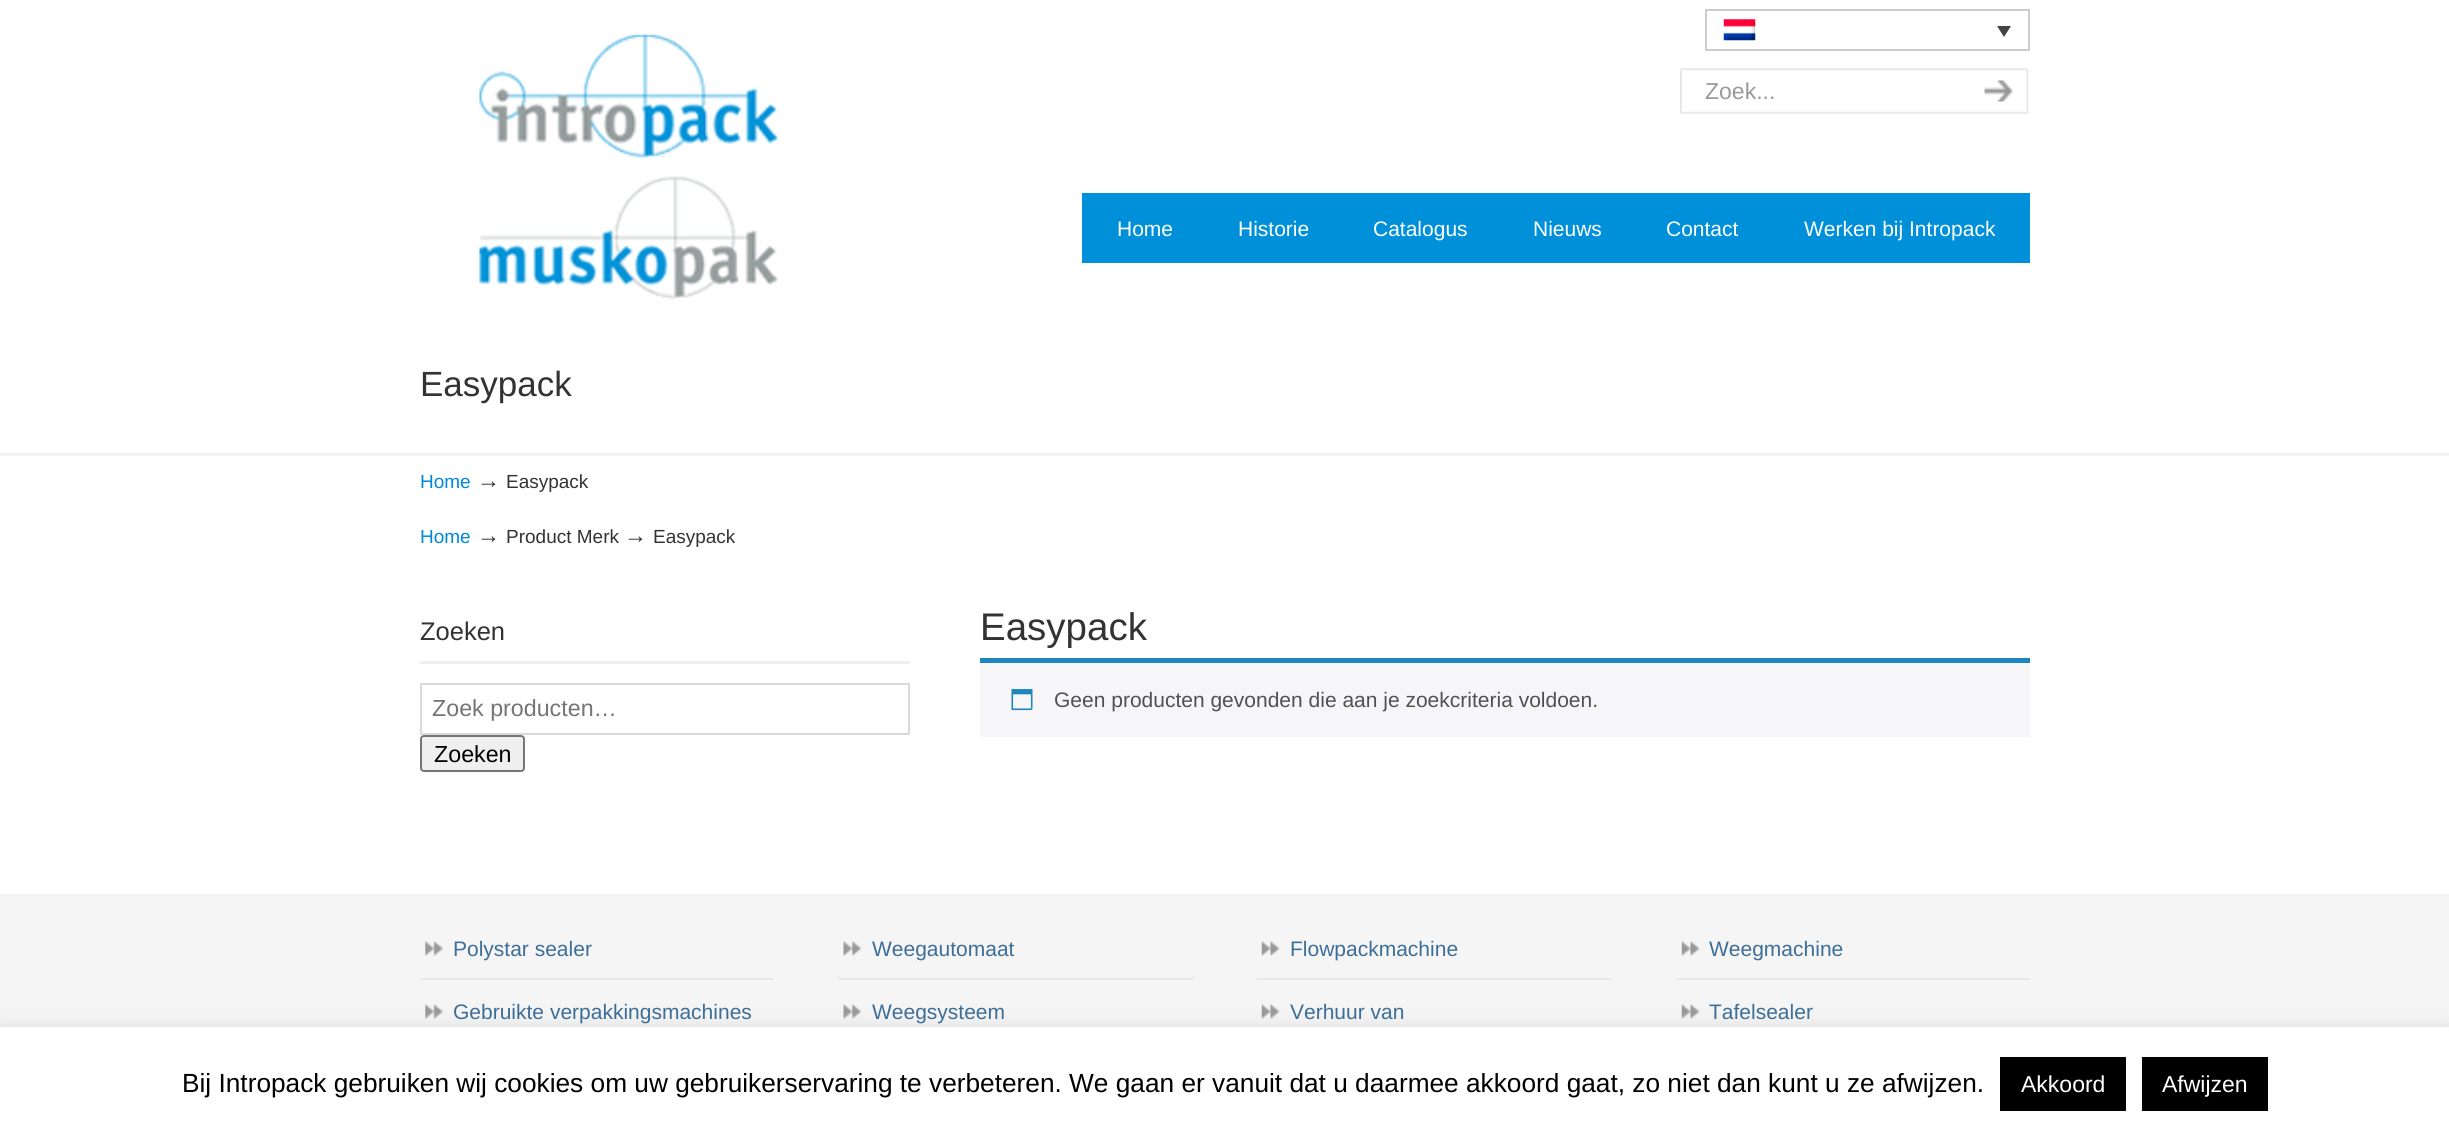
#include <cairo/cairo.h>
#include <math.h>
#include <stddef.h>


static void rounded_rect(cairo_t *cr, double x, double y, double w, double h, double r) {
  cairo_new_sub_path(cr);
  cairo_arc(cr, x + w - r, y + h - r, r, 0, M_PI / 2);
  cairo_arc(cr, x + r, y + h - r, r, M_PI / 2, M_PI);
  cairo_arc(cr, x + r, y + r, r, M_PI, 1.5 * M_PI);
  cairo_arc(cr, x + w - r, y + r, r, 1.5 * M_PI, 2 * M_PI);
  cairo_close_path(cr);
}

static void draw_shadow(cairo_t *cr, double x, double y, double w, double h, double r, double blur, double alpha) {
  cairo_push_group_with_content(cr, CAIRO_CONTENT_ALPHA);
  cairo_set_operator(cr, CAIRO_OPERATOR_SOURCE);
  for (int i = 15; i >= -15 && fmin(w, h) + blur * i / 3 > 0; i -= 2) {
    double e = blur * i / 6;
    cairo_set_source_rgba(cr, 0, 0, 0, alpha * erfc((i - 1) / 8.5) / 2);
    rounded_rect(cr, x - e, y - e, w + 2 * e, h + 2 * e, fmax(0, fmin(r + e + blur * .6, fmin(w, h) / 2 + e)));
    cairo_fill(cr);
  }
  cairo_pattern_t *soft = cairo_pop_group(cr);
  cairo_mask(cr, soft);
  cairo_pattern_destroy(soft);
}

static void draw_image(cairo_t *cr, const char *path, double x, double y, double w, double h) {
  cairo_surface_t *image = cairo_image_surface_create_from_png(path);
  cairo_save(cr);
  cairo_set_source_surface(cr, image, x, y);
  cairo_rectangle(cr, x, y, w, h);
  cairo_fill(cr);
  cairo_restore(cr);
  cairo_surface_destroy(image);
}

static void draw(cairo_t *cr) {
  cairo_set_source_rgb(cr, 1, 1, 1);
  cairo_paint(cr);
  draw_image(cr, "images/1.png", 479, 34, 299, 266);
  cairo_rectangle(cr, 1706, 10, 323, 40);
  cairo_set_source_rgb(cr, 205 / 255.0, 205 / 255.0, 205 / 255.0);
  cairo_stroke(cr);
  draw_image(cr, "images/2.png", 1723, 19, 33, 22);
  cairo_set_source_rgb(cr, 68 / 255.0, 68 / 255.0, 68 / 255.0);
  cairo_new_path(cr);
  cairo_move_to(cr, 1997, 26);
  cairo_line_to(cr, 2011, 26);
  cairo_line_to(cr, 2004, 37);
  cairo_close_path(cr);
  cairo_fill(cr);
  draw_image(cr, "images/3.png", 1680, 68, 279, 46);
  draw_image(cr, "images/4.png", 1958, 68, 71, 46);
  cairo_set_source_rgb(cr, 0, 144 / 255.0, 218 / 255.0);
  cairo_rectangle(cr, 1082, 193, 948, 70);
  cairo_fill(cr);
  cairo_set_source_rgb(cr, 242 / 255.0, 242 / 255.0, 242 / 255.0);
  cairo_rectangle(cr, 0, 453, 2449, 3);
  cairo_fill(cr);
  cairo_set_source_rgb(cr, 239 / 255.0, 239 / 255.0, 239 / 255.0);
  cairo_rectangle(cr, 420, 661, 490, 3);
  cairo_fill(cr);
  cairo_rectangle(cr, 421, 684, 488, 50);
  cairo_set_source_rgb(cr, 221 / 255.0, 217 / 255.0, 217 / 255.0);
  cairo_stroke(cr);
  cairo_set_source_rgb(cr, 239 / 255.0, 239 / 255.0, 239 / 255.0);
  rounded_rect(cr, 421, 736, 103, 35, 3);
  cairo_fill_preserve(cr);
  cairo_set_source_rgb(cr, 118 / 255.0, 118 / 255.0, 118 / 255.0);
  cairo_stroke(cr);
  cairo_set_source_rgb(cr, 246 / 255.0, 245 / 255.0, 248 / 255.0);
  cairo_rectangle(cr, 980, 663, 1050, 74);
  cairo_fill(cr);
  cairo_set_source_rgb(cr, 30 / 255.0, 133 / 255.0, 190 / 255.0);
  cairo_rectangle(cr, 980, 658, 1050, 5);
  cairo_fill(cr);
  draw_image(cr, "images/5.png", 1011, 689, 22, 22);
  cairo_set_source_rgb(cr, 245 / 255.0, 245 / 255.0, 245 / 255.0);
  cairo_rectangle(cr, 0, 894, 2449, 133);
  cairo_fill(cr);
  draw_image(cr, "images/6.png", 420, 978, 354, 2);
  draw_image(cr, "images/7.png", 425, 941, 18, 15);
  draw_image(cr, "images/7.png", 425, 1004, 18, 15);
  draw_image(cr, "images/8.png", 838, 978, 356, 2);
  draw_image(cr, "images/9.png", 843, 941, 18, 15);
  draw_image(cr, "images/9.png", 843, 1004, 18, 15);
  draw_image(cr, "images/10.png", 1256, 978, 356, 2);
  draw_image(cr, "images/11.png", 1261, 941, 19, 15);
  draw_image(cr, "images/11.png", 1261, 1004, 19, 15);
  draw_image(cr, "images/12.png", 1676, 978, 354, 2);
  draw_image(cr, "images/11.png", 1681, 941, 19, 15);
  draw_image(cr, "images/11.png", 1681, 1004, 19, 15);
  cairo_set_source_rgb(cr, 172 / 255.0, 171 / 255.0, 171 / 255.0);
  draw_shadow(cr, 0, 1026, 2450, 105, 0, 9, 0.3);
  cairo_set_source_rgb(cr, 1, 1, 1);
  cairo_rectangle(cr, 0, 1027, 2449, 104);
  cairo_fill(cr);
  cairo_set_source_rgb(cr, 0, 0, 0);
  cairo_rectangle(cr, 2000, 1057, 126, 54);
  cairo_fill(cr);
  cairo_rectangle(cr, 2142, 1057, 126, 54);
  cairo_fill(cr);
  cairo_select_font_face(cr, "Liberation Sans", CAIRO_FONT_SLANT_NORMAL, CAIRO_FONT_WEIGHT_NORMAL);
  cairo_set_font_size(cr, 23);
  cairo_set_source_rgb(cr, 153 / 255.0, 153 / 255.0, 153 / 255.0);
  cairo_move_to(cr, 1705, 99);
  cairo_show_text(cr, "Zoek...");
  cairo_set_font_size(cr, 21);
  cairo_set_source_rgb(cr, 1, 1, 1);
  cairo_move_to(cr, 1117, 236);
  cairo_show_text(cr, "Home");
  cairo_move_to(cr, 1238, 236);
  cairo_show_text(cr, "Historie");
  cairo_move_to(cr, 1373, 236);
  cairo_show_text(cr, "Catalogus");
  cairo_move_to(cr, 1533, 236);
  cairo_show_text(cr, "Nieuws");
  cairo_move_to(cr, 1666, 236);
  cairo_show_text(cr, "Contact");
  cairo_move_to(cr, 1804, 236);
  cairo_show_text(cr, "Werken bij Intropack");
  cairo_set_font_size(cr, 35);
  cairo_set_source_rgb(cr, 51 / 255.0, 51 / 255.0, 51 / 255.0);
  cairo_move_to(cr, 420, 396);
  cairo_show_text(cr, "Easypack");
  cairo_set_font_size(cr, 19);
  cairo_set_source_rgb(cr, 0, 137 / 255.0, 212 / 255.0);
  cairo_move_to(cr, 420, 488);
  cairo_show_text(cr, "Home");
  cairo_set_font_size(cr, 23);
  cairo_set_source_rgb(cr, 51 / 255.0, 51 / 255.0, 51 / 255.0);
  cairo_move_to(cr, 477, 488);
  cairo_show_text(cr, "→");
  cairo_set_font_size(cr, 19);
  cairo_move_to(cr, 506, 488);
  cairo_show_text(cr, "Easypack");
  cairo_set_source_rgb(cr, 0, 137 / 255.0, 212 / 255.0);
  cairo_move_to(cr, 420, 543);
  cairo_show_text(cr, "Home");
  cairo_set_font_size(cr, 23);
  cairo_set_source_rgb(cr, 51 / 255.0, 51 / 255.0, 51 / 255.0);
  cairo_move_to(cr, 477, 543);
  cairo_show_text(cr, "→");
  cairo_set_font_size(cr, 19);
  cairo_move_to(cr, 506, 543);
  cairo_show_text(cr, "Product Merk");
  cairo_set_font_size(cr, 23);
  cairo_move_to(cr, 624, 543);
  cairo_show_text(cr, "→");
  cairo_set_font_size(cr, 19);
  cairo_move_to(cr, 653, 543);
  cairo_show_text(cr, "Easypack");
  cairo_set_font_size(cr, 25.5);
  cairo_move_to(cr, 420, 640);
  cairo_show_text(cr, "Zoeken");
  cairo_set_font_size(cr, 23.25);
  cairo_set_source_rgb(cr, 117 / 255.0, 117 / 255.0, 117 / 255.0);
  cairo_move_to(cr, 432, 716);
  cairo_show_text(cr, "Zoek producten…");
  cairo_set_source_rgb(cr, 0, 0, 0);
  cairo_move_to(cr, 434, 762);
  cairo_show_text(cr, "Zoeken");
  cairo_set_font_size(cr, 38.5);
  cairo_set_source_rgb(cr, 51 / 255.0, 51 / 255.0, 51 / 255.0);
  cairo_move_to(cr, 980, 640);
  cairo_show_text(cr, "Easypack");
  cairo_set_font_size(cr, 21);
  cairo_set_source_rgb(cr, 81 / 255.0, 81 / 255.0, 81 / 255.0);
  cairo_move_to(cr, 1054, 707);
  cairo_show_text(cr, "Geen producten gevonden die aan je zoekcriteria voldoen.");
  cairo_set_source_rgb(cr, 61 / 255.0, 110 / 255.0, 151 / 255.0);
  cairo_move_to(cr, 453, 956);
  cairo_show_text(cr, "Polystar sealer");
  cairo_move_to(cr, 453, 1019);
  cairo_show_text(cr, "Gebruikte verpakkingsmachines");
  cairo_move_to(cr, 872, 956);
  cairo_show_text(cr, "Weegautomaat");
  cairo_move_to(cr, 872, 1019);
  cairo_show_text(cr, "Weegsysteem");
  cairo_move_to(cr, 1290, 956);
  cairo_show_text(cr, "Flowpackmachine");
  cairo_move_to(cr, 1290, 1019);
  cairo_show_text(cr, "Verhuur van");
  cairo_move_to(cr, 1709, 956);
  cairo_show_text(cr, "Weegmachine");
  cairo_move_to(cr, 1709, 1019);
  cairo_show_text(cr, "Tafelsealer");
  cairo_set_font_size(cr, 26.25);
  cairo_set_source_rgb(cr, 0, 0, 0);
  cairo_move_to(cr, 182, 1092);
  cairo_show_text(cr, "Bij Intropack gebruiken wij cookies om uw gebruikerservaring te verbeteren. We gaan er vanuit dat u daarmee akkoord gaat, zo niet dan kunt u ze afwijzen.");
  cairo_set_font_size(cr, 23);
  cairo_set_source_rgb(cr, 1, 1, 1);
  cairo_move_to(cr, 2021, 1092);
  cairo_show_text(cr, "Akkoord");
  cairo_move_to(cr, 2162, 1092);
  cairo_show_text(cr, "Afwijzen");
}

int main(void) {
  cairo_surface_t *surface = cairo_image_surface_create(CAIRO_FORMAT_RGB24, 2449, 1131);
  cairo_t *cr = cairo_create(surface);
  cairo_font_options_t *options = cairo_font_options_create();
  cairo_font_options_set_hint_metrics(options, CAIRO_HINT_METRICS_OFF);
  cairo_font_options_set_hint_style(options, CAIRO_HINT_STYLE_NONE);
  cairo_set_font_options(cr, options);
  cairo_set_miter_limit(cr, 4);
  draw(cr);
  cairo_surface_write_to_png(surface, "out.png");
  cairo_font_options_destroy(options);
  cairo_destroy(cr);
  cairo_surface_destroy(surface);
  return 0;
}
